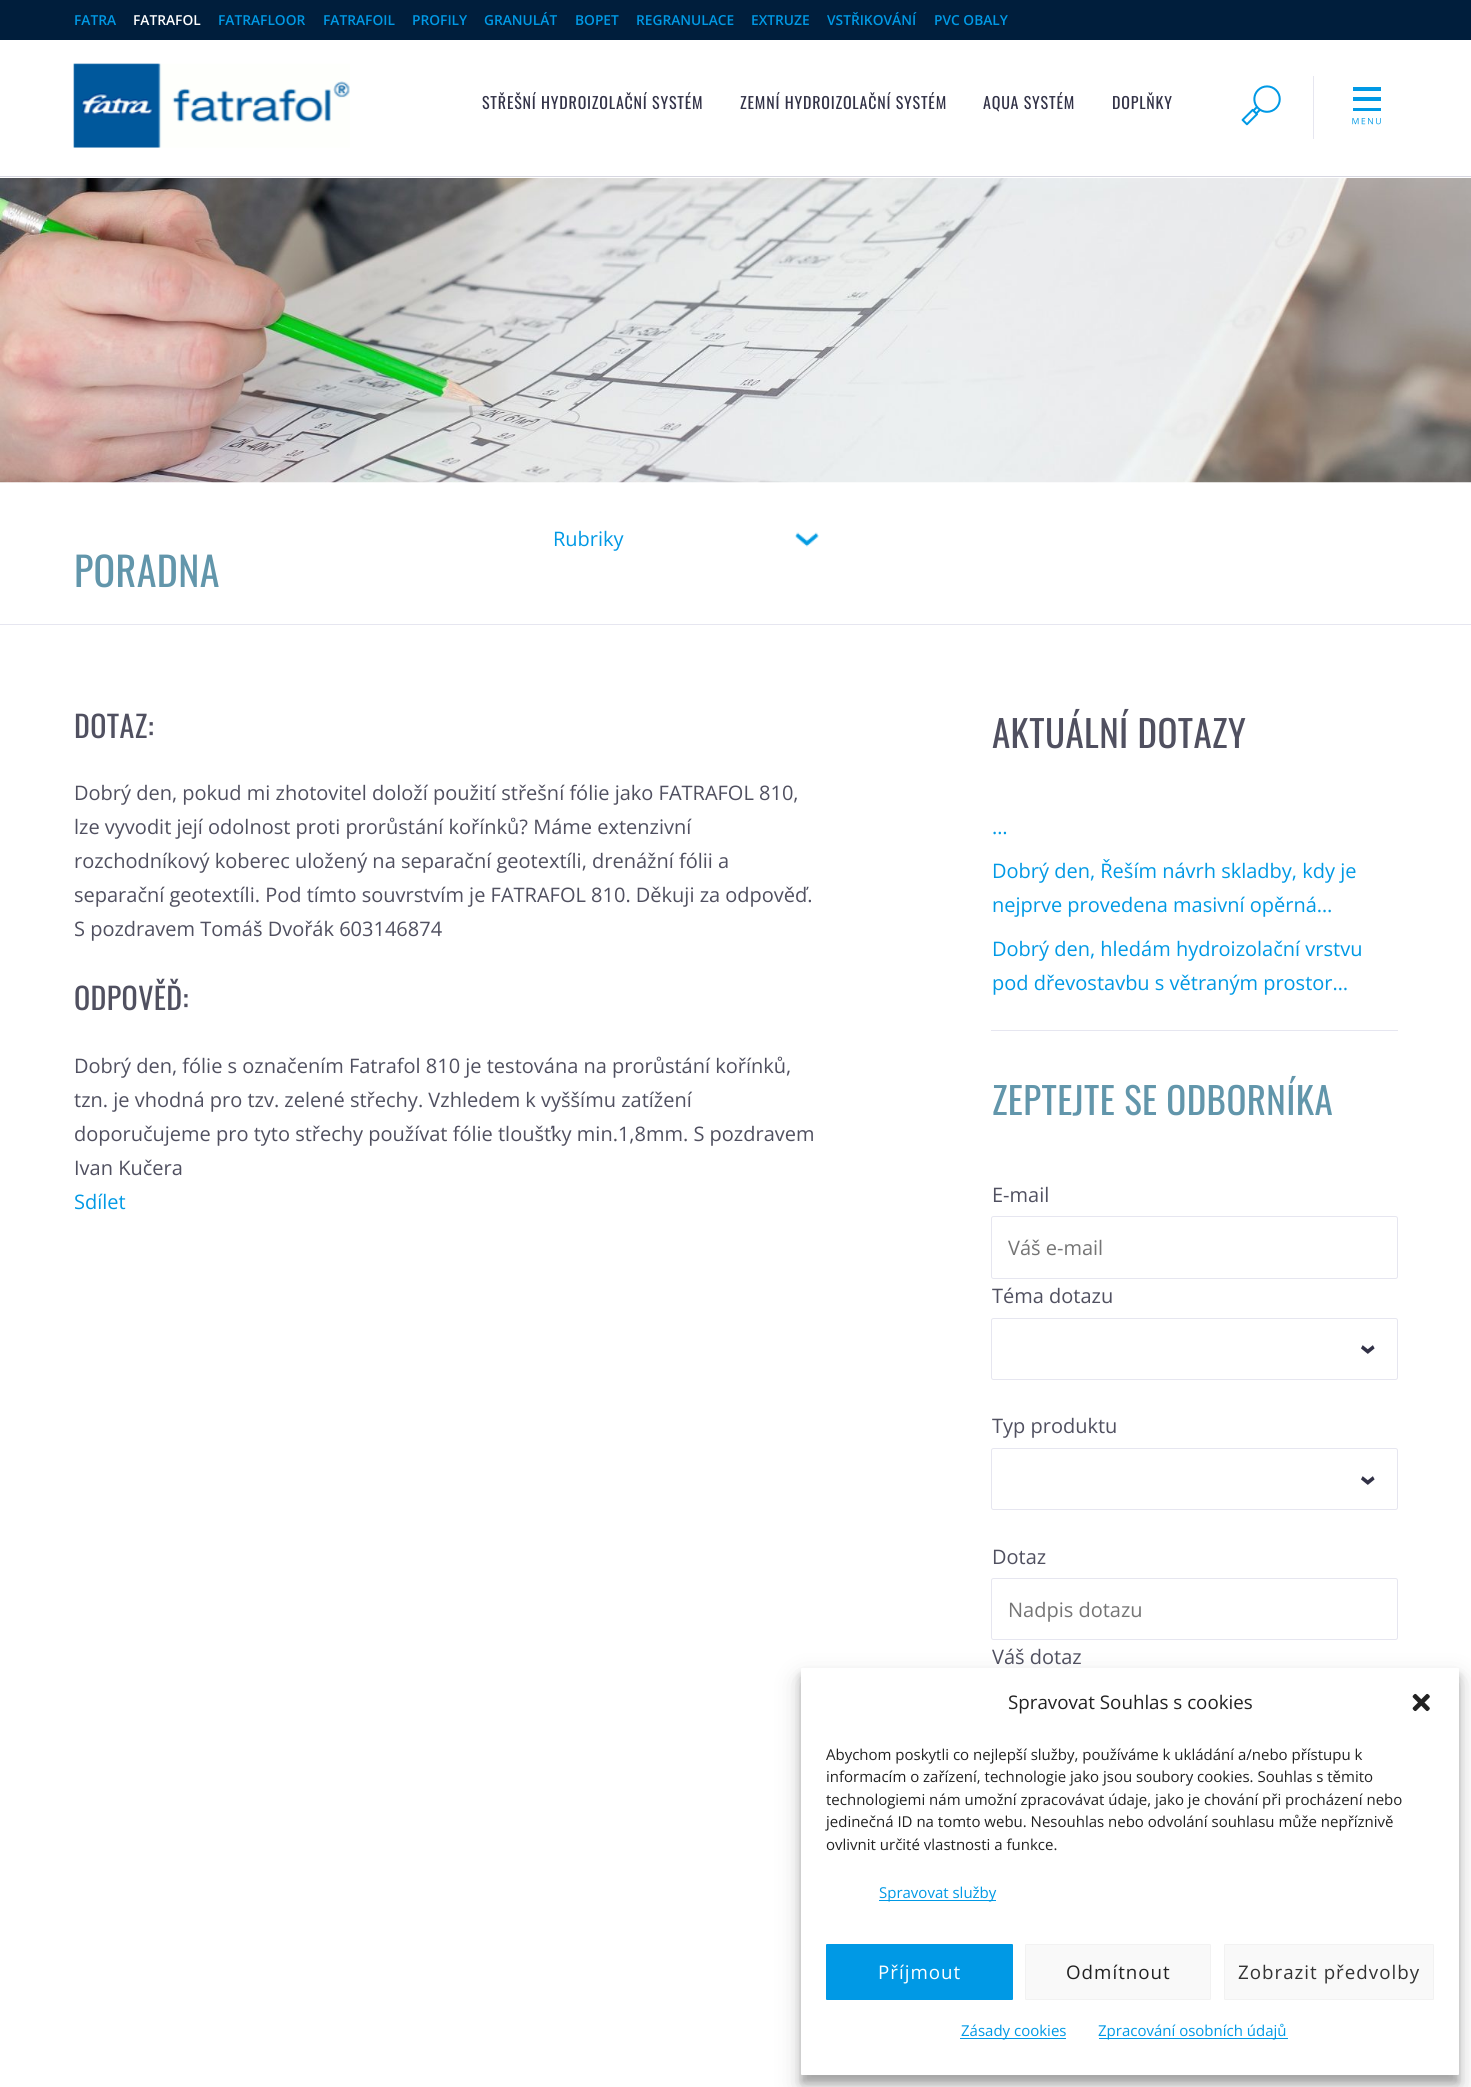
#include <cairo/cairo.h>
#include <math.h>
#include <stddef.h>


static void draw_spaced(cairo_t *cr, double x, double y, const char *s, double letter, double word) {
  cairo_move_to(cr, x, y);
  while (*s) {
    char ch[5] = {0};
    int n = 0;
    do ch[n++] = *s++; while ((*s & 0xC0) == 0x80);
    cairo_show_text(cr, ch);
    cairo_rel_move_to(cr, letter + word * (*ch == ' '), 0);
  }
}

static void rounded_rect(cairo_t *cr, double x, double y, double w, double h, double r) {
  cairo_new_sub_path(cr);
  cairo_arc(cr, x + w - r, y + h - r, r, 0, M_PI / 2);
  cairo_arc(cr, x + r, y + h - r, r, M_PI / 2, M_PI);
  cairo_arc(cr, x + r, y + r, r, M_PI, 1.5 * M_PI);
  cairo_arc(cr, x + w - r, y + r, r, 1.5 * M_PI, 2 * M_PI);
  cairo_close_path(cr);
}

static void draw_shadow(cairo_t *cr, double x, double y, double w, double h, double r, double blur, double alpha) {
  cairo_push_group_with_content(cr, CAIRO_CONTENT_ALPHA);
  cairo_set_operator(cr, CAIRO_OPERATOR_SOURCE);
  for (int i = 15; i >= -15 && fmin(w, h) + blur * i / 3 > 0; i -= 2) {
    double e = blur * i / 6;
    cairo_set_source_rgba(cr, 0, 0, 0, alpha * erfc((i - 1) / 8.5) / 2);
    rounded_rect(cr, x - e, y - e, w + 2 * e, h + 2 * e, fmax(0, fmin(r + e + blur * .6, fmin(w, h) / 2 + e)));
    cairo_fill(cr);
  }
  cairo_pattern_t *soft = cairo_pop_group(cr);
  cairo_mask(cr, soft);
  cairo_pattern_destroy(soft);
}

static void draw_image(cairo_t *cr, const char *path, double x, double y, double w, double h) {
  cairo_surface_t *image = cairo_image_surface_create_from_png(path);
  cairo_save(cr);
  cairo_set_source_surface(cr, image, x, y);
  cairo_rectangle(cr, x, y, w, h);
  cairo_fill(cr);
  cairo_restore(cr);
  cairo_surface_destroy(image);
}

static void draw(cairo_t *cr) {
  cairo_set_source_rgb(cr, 1, 1, 1);
  cairo_paint(cr);
  cairo_set_source_rgb(cr, 0, 30 / 255.0, 60 / 255.0);
  cairo_rectangle(cr, 0, 0, 1471, 40);
  cairo_fill(cr);
  cairo_set_source_rgb(cr, 215 / 255.0, 215 / 255.0, 225 / 255.0);
  cairo_rectangle(cr, 0, 176, 1471, 1);
  cairo_fill(cr);
  draw_image(cr, "images/1.png", 73, 63, 277, 85);
  draw_image(cr, "images/2.png", 1241, 85, 40, 41);
  cairo_set_source_rgb(cr, 230 / 255.0, 230 / 255.0, 240 / 255.0);
  cairo_rectangle(cr, 1313, 76, 1, 63);
  cairo_fill(cr);
  draw_image(cr, "images/3.png", 1352, 87, 29, 38);
  draw_image(cr, "images/4.png", 0, 178, 1471, 305);
  cairo_rectangle(cr, 0, 624, 1471, 1);
  cairo_fill(cr);
  draw_image(cr, "images/5.png", 795, 532, 24, 15);
  cairo_rectangle(cr, 991, 1030, 407, 1);
  cairo_fill(cr);
  rounded_rect(cr, 991.5, 1216.5, 406, 62, 2);
  cairo_set_line_width(cr, 1);
  cairo_stroke(cr);
  rounded_rect(cr, 991.5, 1318.5, 406, 61, 2);
  cairo_stroke(cr);
  rounded_rect(cr, 991.5, 1448.5, 406, 61, 2);
  cairo_stroke(cr);
  rounded_rect(cr, 991.5, 1578.5, 406, 61, 2);
  cairo_stroke(cr);
  cairo_set_source_rgb(cr, 0, 0, 0);
  draw_shadow(cr, 801, 1675, 658, 408, 1, 4, 0.23);
  draw_shadow(cr, 801, 1680, 658, 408, 1, 12.5, 0.19);
  cairo_set_source_rgb(cr, 1, 1, 1);
  rounded_rect(cr, 801, 1668, 658, 407, 1);
  cairo_fill(cr);
  draw_image(cr, "images/6.png", 1412, 1693, 18, 19);
  cairo_set_source_rgb(cr, 0, 153 / 255.0, 229 / 255.0);
  cairo_rectangle(cr, 879, 1900, 117, 1);
  cairo_fill(cr);
  rounded_rect(cr, 826.5, 1944.5, 186, 55, 0.5);
  cairo_fill_preserve(cr);
  cairo_stroke(cr);
  cairo_set_source_rgb(cr, 249 / 255.0, 249 / 255.0, 249 / 255.0);
  rounded_rect(cr, 1025.5, 1944.5, 185, 55, 0.5);
  cairo_fill_preserve(cr);
  cairo_set_source_rgb(cr, 242 / 255.0, 242 / 255.0, 242 / 255.0);
  cairo_stroke(cr);
  cairo_set_source_rgb(cr, 249 / 255.0, 249 / 255.0, 249 / 255.0);
  rounded_rect(cr, 1224.5, 1944.5, 209, 55, 0.5);
  cairo_fill_preserve(cr);
  cairo_set_source_rgb(cr, 242 / 255.0, 242 / 255.0, 242 / 255.0);
  cairo_stroke(cr);
  cairo_set_source_rgb(cr, 0, 153 / 255.0, 229 / 255.0);
  cairo_rectangle(cr, 960, 2038, 106, 1);
  cairo_fill(cr);
  cairo_rectangle(cr, 1099, 2038, 189, 1);
  cairo_fill(cr);
  cairo_select_font_face(cr, "Open Sans SemiBold", CAIRO_FONT_SLANT_NORMAL, CAIRO_FONT_WEIGHT_NORMAL);
  cairo_set_font_size(cr, 13.75);
  cairo_move_to(cr, 74, 25);
  cairo_show_text(cr, "FATRA");
  cairo_set_source_rgb(cr, 1, 1, 1);
  cairo_move_to(cr, 133, 25);
  cairo_show_text(cr, "FATRAFOL");
  cairo_set_source_rgb(cr, 0, 153 / 255.0, 229 / 255.0);
  cairo_move_to(cr, 218, 25);
  cairo_show_text(cr, "FATRAFLOOR");
  cairo_move_to(cr, 323, 25);
  cairo_show_text(cr, "FATRAFOIL");
  cairo_move_to(cr, 412, 25);
  cairo_show_text(cr, "PROFILY");
  cairo_move_to(cr, 484, 25);
  cairo_show_text(cr, "GRANULÁT");
  cairo_move_to(cr, 575, 25);
  cairo_show_text(cr, "BOPET");
  cairo_move_to(cr, 636, 25);
  cairo_show_text(cr, "REGRANULACE");
  cairo_move_to(cr, 751, 25);
  cairo_show_text(cr, "EXTRUZE");
  cairo_move_to(cr, 827, 25);
  cairo_show_text(cr, "VSTŘIKOVÁNÍ");
  cairo_move_to(cr, 934, 25);
  cairo_show_text(cr, "PVC OBALY");
  cairo_select_font_face(cr, "Oswald", CAIRO_FONT_SLANT_NORMAL, CAIRO_FONT_WEIGHT_NORMAL);
  cairo_set_font_size(cr, 16);
  cairo_set_source_rgb(cr, 50 / 255.0, 50 / 255.0, 71 / 255.0);
  draw_spaced(cr, 482, 109, "STŘEŠNÍ HYDROIZOLAČNÍ SYSTÉM", 0.8, 0);
  draw_spaced(cr, 740, 109, "ZEMNÍ HYDROIZOLAČNÍ SYSTÉM", 0.8, 0);
  draw_spaced(cr, 983, 109, "AQUA SYSTÉM", 0.8, 0);
  draw_spaced(cr, 1112, 109, "DOPLŇKY", 0.8, 0);
  cairo_select_font_face(cr, "Open Sans", CAIRO_FONT_SLANT_NORMAL, CAIRO_FONT_WEIGHT_NORMAL);
  cairo_set_font_size(cr, 20);
  cairo_set_source_rgb(cr, 0, 153 / 255.0, 229 / 255.0);
  cairo_move_to(cr, 553, 546);
  cairo_show_text(cr, "Rubriky");
  cairo_select_font_face(cr, "Oswald", CAIRO_FONT_SLANT_NORMAL, CAIRO_FONT_WEIGHT_NORMAL);
  cairo_set_font_size(cr, 40);
  cairo_set_source_rgb(cr, 98 / 255.0, 150 / 255.0, 171 / 255.0);
  draw_spaced(cr, 74, 587, "PORADNA", 0.4, 0);
  cairo_set_font_size(cr, 30);
  cairo_set_source_rgb(cr, 80 / 255.0, 80 / 255.0, 96 / 255.0);
  draw_spaced(cr, 74, 738, "DOTAZ:", 0.4, 0);
  cairo_select_font_face(cr, "Open Sans", CAIRO_FONT_SLANT_NORMAL, CAIRO_FONT_WEIGHT_NORMAL);
  cairo_set_font_size(cr, 20);
  cairo_move_to(cr, 74, 800);
  cairo_show_text(cr, "Dobrý den, pokud mi zhotovitel doloží použití střešní fólie jako FATRAFOL 810,");
  cairo_move_to(cr, 74, 834);
  cairo_show_text(cr, "lze vyvodit její odolnost proti prorůstání kořínků? Máme extenzivní");
  cairo_move_to(cr, 74, 868);
  cairo_show_text(cr, "rozchodníkový koberec uložený na separační geotextíli, drenážní fólii a");
  cairo_move_to(cr, 74, 902);
  cairo_show_text(cr, "separační geotextíli. Pod tímto souvrstvím je FATRAFOL 810. Děkuji za odpověď.");
  cairo_move_to(cr, 74, 936);
  cairo_show_text(cr, "S pozdravem Tomáš Dvořák 603146874");
  cairo_select_font_face(cr, "Oswald", CAIRO_FONT_SLANT_NORMAL, CAIRO_FONT_WEIGHT_NORMAL);
  cairo_set_font_size(cr, 30);
  draw_spaced(cr, 74, 1010, "ODPOVĚĎ:", 0.4, 0);
  cairo_select_font_face(cr, "Open Sans", CAIRO_FONT_SLANT_NORMAL, CAIRO_FONT_WEIGHT_NORMAL);
  cairo_set_font_size(cr, 20);
  cairo_move_to(cr, 74, 1073);
  cairo_show_text(cr, "Dobrý den, fólie s označením Fatrafol 810 je testována na prorůstání kořínků,");
  cairo_move_to(cr, 74, 1107);
  cairo_show_text(cr, "tzn. je vhodná pro tzv. zelené střechy. Vzhledem k vyššímu zatížení");
  cairo_move_to(cr, 74, 1141);
  cairo_show_text(cr, "doporučujeme pro tyto střechy používat fólie tloušťky min.1,8mm. S pozdravem");
  cairo_move_to(cr, 74, 1175);
  cairo_show_text(cr, "Ivan Kučera");
  cairo_set_source_rgb(cr, 0, 153 / 255.0, 229 / 255.0);
  cairo_move_to(cr, 74, 1209);
  cairo_show_text(cr, "Sdílet");
  cairo_select_font_face(cr, "Oswald", CAIRO_FONT_SLANT_NORMAL, CAIRO_FONT_WEIGHT_NORMAL);
  cairo_set_font_size(cr, 37);
  cairo_set_source_rgb(cr, 80 / 255.0, 80 / 255.0, 96 / 255.0);
  draw_spaced(cr, 992, 748, "AKTUÁLNÍ DOTAZY", 0.4, 0);
  cairo_select_font_face(cr, "Open Sans", CAIRO_FONT_SLANT_NORMAL, CAIRO_FONT_WEIGHT_NORMAL);
  cairo_set_font_size(cr, 20);
  cairo_set_source_rgb(cr, 0, 153 / 255.0, 229 / 255.0);
  cairo_move_to(cr, 992, 834);
  cairo_show_text(cr, "…");
  cairo_move_to(cr, 992, 878);
  cairo_show_text(cr, "Dobrý den, Řeším návrh skladby, kdy je");
  cairo_move_to(cr, 992, 912);
  cairo_show_text(cr, "nejprve provedena masivní opěrná…");
  cairo_move_to(cr, 992, 956);
  cairo_show_text(cr, "Dobrý den, hledám hydroizolační vrstvu");
  cairo_move_to(cr, 992, 990);
  cairo_show_text(cr, "pod dřevostavbu s větraným prostor…");
  cairo_select_font_face(cr, "Oswald", CAIRO_FONT_SLANT_NORMAL, CAIRO_FONT_WEIGHT_NORMAL);
  cairo_set_font_size(cr, 37);
  cairo_set_source_rgb(cr, 98 / 255.0, 150 / 255.0, 171 / 255.0);
  draw_spaced(cr, 992, 1115, "ZEPTEJTE SE ODBORNÍKA", 0.4, 0);
  cairo_select_font_face(cr, "Open Sans", CAIRO_FONT_SLANT_NORMAL, CAIRO_FONT_WEIGHT_NORMAL);
  cairo_set_font_size(cr, 20);
  cairo_set_source_rgb(cr, 80 / 255.0, 80 / 255.0, 96 / 255.0);
  cairo_move_to(cr, 992, 1202);
  cairo_show_text(cr, "E-mail");
  cairo_set_source_rgb(cr, 117 / 255.0, 117 / 255.0, 117 / 255.0);
  cairo_move_to(cr, 1008, 1255);
  cairo_show_text(cr, "Váš e-mail");
  cairo_set_source_rgb(cr, 80 / 255.0, 80 / 255.0, 96 / 255.0);
  cairo_move_to(cr, 992, 1303);
  cairo_show_text(cr, "Téma dotazu");
  cairo_select_font_face(cr, "Open Sans", CAIRO_FONT_SLANT_NORMAL, CAIRO_FONT_WEIGHT_BOLD);
  cairo_set_font_size(cr, 30);
  cairo_set_source_rgb(cr, 50 / 255.0, 50 / 255.0, 71 / 255.0);
  cairo_save(cr);
  cairo_translate(cr, 1376, 1355);
  cairo_rotate(cr, -90 * M_PI / 180);
  cairo_move_to(cr, 0, 0);
  cairo_show_text(cr, "‹");
  cairo_restore(cr);
  cairo_select_font_face(cr, "Open Sans", CAIRO_FONT_SLANT_NORMAL, CAIRO_FONT_WEIGHT_NORMAL);
  cairo_set_font_size(cr, 20);
  cairo_set_source_rgb(cr, 80 / 255.0, 80 / 255.0, 96 / 255.0);
  cairo_move_to(cr, 992, 1433);
  cairo_show_text(cr, "Typ produktu");
  cairo_select_font_face(cr, "Open Sans", CAIRO_FONT_SLANT_NORMAL, CAIRO_FONT_WEIGHT_BOLD);
  cairo_set_font_size(cr, 30);
  cairo_set_source_rgb(cr, 50 / 255.0, 50 / 255.0, 71 / 255.0);
  cairo_save(cr);
  cairo_translate(cr, 1376, 1486);
  cairo_rotate(cr, -90 * M_PI / 180);
  cairo_move_to(cr, 0, 0);
  cairo_show_text(cr, "‹");
  cairo_restore(cr);
  cairo_select_font_face(cr, "Open Sans", CAIRO_FONT_SLANT_NORMAL, CAIRO_FONT_WEIGHT_NORMAL);
  cairo_set_font_size(cr, 20);
  cairo_set_source_rgb(cr, 80 / 255.0, 80 / 255.0, 96 / 255.0);
  cairo_move_to(cr, 992, 1564);
  cairo_show_text(cr, "Dotaz");
  cairo_set_source_rgb(cr, 117 / 255.0, 117 / 255.0, 117 / 255.0);
  cairo_move_to(cr, 1008, 1617);
  cairo_show_text(cr, "Nadpis dotazu");
  cairo_set_source_rgb(cr, 80 / 255.0, 80 / 255.0, 96 / 255.0);
  cairo_move_to(cr, 992, 1664);
  cairo_show_text(cr, "Váš dotaz");
  cairo_set_font_size(cr, 18.75);
  cairo_set_source_rgb(cr, 34 / 255.0, 34 / 255.0, 34 / 255.0);
  cairo_move_to(cr, 1008, 1709);
  cairo_show_text(cr, "Spravovat Souhlas s cookies");
  cairo_set_font_size(cr, 15);
  cairo_move_to(cr, 826, 1760);
  cairo_show_text(cr, "Abychom poskytli co nejlepší služby, používáme k ukládání a/nebo přístupu k");
  cairo_move_to(cr, 826, 1782);
  cairo_show_text(cr, "informacím o zařízení, technologie jako jsou soubory cookies. Souhlas s těmito");
  cairo_move_to(cr, 826, 1805);
  cairo_show_text(cr, "technologiemi nám umožní zpracovávat údaje, jako je chování při procházení nebo");
  cairo_move_to(cr, 826, 1827);
  cairo_show_text(cr, "jedinečná ID na tomto webu. Nesouhlas nebo odvolání souhlasu může nepříznivě");
  cairo_move_to(cr, 826, 1850);
  cairo_show_text(cr, "ovlivnit určité vlastnosti a funkce.");
  cairo_set_source_rgb(cr, 0, 153 / 255.0, 229 / 255.0);
  cairo_move_to(cr, 879, 1898);
  cairo_show_text(cr, "Spravovat služby");
  cairo_set_font_size(cr, 18.75);
  cairo_set_source_rgb(cr, 1, 1, 1);
  draw_spaced(cr, 878, 1979, "Příjmout", 1, 0);
  cairo_set_source_rgb(cr, 34 / 255.0, 34 / 255.0, 34 / 255.0);
  draw_spaced(cr, 1066, 1979, "Odmítnout", 1, 0);
  cairo_set_source_rgb(cr, 51 / 255.0, 51 / 255.0, 51 / 255.0);
  draw_spaced(cr, 1238, 1979, "Zobrazit předvolby", 1, 0);
  cairo_set_font_size(cr, 15);
  cairo_set_source_rgb(cr, 0, 153 / 255.0, 229 / 255.0);
  cairo_move_to(cr, 961, 2036);
  cairo_show_text(cr, "Zásady cookies");
  cairo_move_to(cr, 1098, 2036);
  cairo_show_text(cr, "Zpracování osobních údajů");
}

int main(void) {
  cairo_surface_t *surface = cairo_image_surface_create(CAIRO_FORMAT_RGB24, 1471, 2087);
  cairo_t *cr = cairo_create(surface);
  cairo_font_options_t *options = cairo_font_options_create();
  cairo_font_options_set_hint_metrics(options, CAIRO_HINT_METRICS_OFF);
  cairo_font_options_set_hint_style(options, CAIRO_HINT_STYLE_NONE);
  cairo_set_font_options(cr, options);
  cairo_set_miter_limit(cr, 4);
  draw(cr);
  cairo_surface_write_to_png(surface, "out.png");
  cairo_font_options_destroy(options);
  cairo_destroy(cr);
  cairo_surface_destroy(surface);
  return 0;
}
